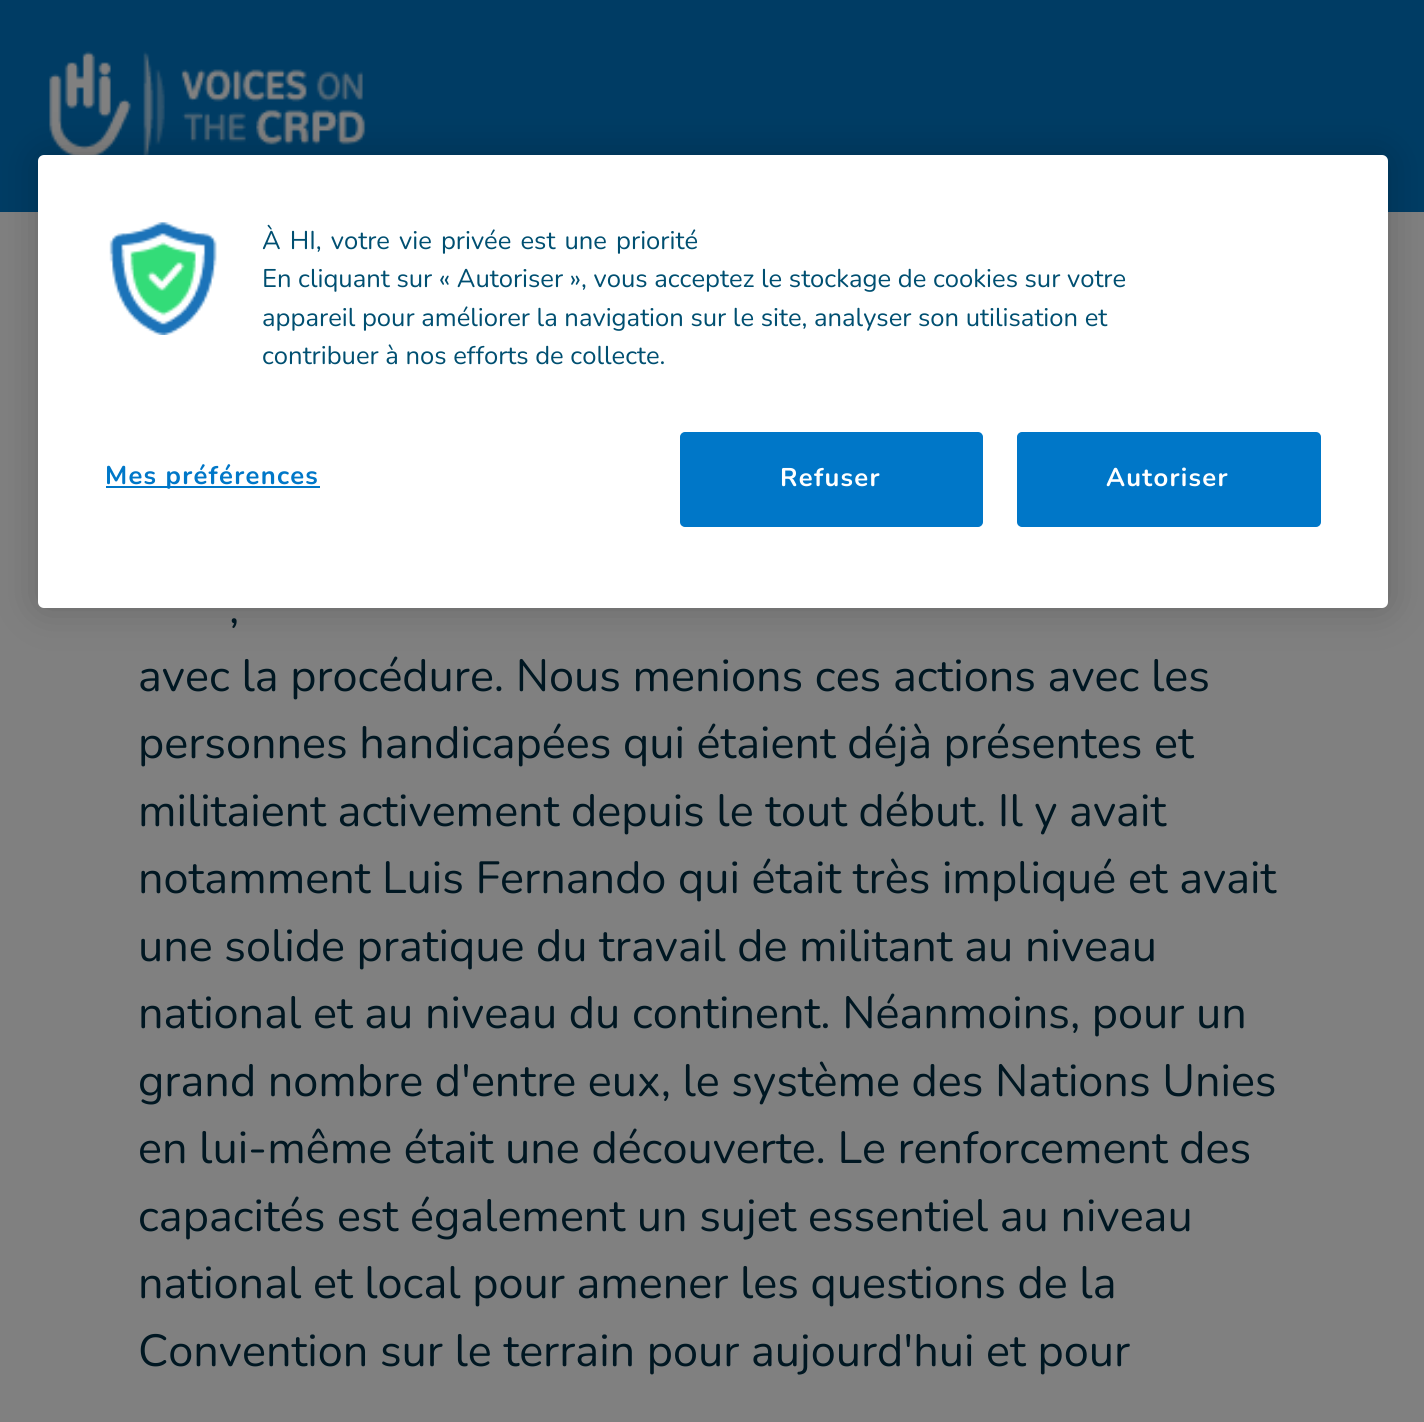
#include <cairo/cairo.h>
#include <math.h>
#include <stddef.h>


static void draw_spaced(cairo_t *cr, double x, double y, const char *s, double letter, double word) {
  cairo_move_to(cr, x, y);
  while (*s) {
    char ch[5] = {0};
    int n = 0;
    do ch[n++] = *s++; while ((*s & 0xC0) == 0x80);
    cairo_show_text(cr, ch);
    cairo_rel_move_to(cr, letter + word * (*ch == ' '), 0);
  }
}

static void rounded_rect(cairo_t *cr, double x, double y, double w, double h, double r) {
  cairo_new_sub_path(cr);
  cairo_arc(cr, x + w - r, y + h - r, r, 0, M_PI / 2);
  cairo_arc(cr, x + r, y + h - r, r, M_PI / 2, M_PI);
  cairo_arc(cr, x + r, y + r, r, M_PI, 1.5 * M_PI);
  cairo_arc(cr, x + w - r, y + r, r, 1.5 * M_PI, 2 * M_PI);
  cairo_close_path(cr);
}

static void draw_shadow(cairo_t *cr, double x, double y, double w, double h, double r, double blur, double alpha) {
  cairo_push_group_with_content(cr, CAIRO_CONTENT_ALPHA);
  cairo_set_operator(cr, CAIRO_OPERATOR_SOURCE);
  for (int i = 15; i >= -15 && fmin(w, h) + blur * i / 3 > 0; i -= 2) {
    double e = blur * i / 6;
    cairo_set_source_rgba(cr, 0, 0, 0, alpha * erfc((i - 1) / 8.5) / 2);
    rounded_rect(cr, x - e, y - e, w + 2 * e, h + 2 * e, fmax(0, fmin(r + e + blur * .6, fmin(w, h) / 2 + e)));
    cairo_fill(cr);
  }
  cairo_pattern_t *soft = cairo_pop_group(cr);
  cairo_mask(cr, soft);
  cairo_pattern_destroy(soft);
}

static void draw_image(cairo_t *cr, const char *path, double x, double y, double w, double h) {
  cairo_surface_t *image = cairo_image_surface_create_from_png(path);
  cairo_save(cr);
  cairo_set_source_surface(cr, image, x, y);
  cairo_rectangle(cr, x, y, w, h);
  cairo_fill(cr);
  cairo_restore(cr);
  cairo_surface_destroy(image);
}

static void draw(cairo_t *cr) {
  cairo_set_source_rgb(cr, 128 / 255.0, 128 / 255.0, 128 / 255.0);
  cairo_paint(cr);
  cairo_set_source_rgb(cr, 0, 60 / 255.0, 100 / 255.0);
  cairo_rectangle(cr, 0, 0, 1424, 212);
  cairo_fill(cr);
  draw_image(cr, "images/1.png", 49, 51, 317, 104);
  cairo_set_source_rgb(cr, 0, 0, 0);
  draw_shadow(cr, 38, 155, 1350, 453, 6, 20, 0.2);
  cairo_set_source_rgb(cr, 1, 1, 1);
  rounded_rect(cr, 38, 155, 1350, 453, 6);
  cairo_fill(cr);
  draw_image(cr, "images/2.png", 109, 222, 108, 113);
  cairo_set_source_rgb(cr, 0, 119 / 255.0, 200 / 255.0);
  cairo_rectangle(cr, 106, 486, 214, 2);
  cairo_fill(cr);
  rounded_rect(cr, 681, 433, 301, 93, 4);
  cairo_fill_preserve(cr);
  cairo_stroke(cr);
  rounded_rect(cr, 1018, 433, 302, 93, 4);
  cairo_fill_preserve(cr);
  cairo_stroke(cr);
  cairo_select_font_face(cr, "Nunito", CAIRO_FONT_SLANT_NORMAL, CAIRO_FONT_WEIGHT_NORMAL);
  cairo_set_font_size(cr, 25.6);
  cairo_set_source_rgb(cr, 0, 79 / 255.0, 113 / 255.0);
  draw_spaced(cr, 262, 249, "À HI, votre vie privée est une priorité", 0, 2.5);
  cairo_move_to(cr, 262, 287);
  cairo_show_text(cr, "En cliquant sur « Autoriser », vous acceptez le stockage de cookies sur votre");
  cairo_move_to(cr, 262, 326);
  cairo_show_text(cr, "appareil pour améliorer la navigation sur le site, analyser son utilisation et");
  cairo_move_to(cr, 262, 364);
  cairo_show_text(cr, "contribuer à nos efforts de collecte.");
  cairo_select_font_face(cr, "Nunito", CAIRO_FONT_SLANT_NORMAL, CAIRO_FONT_WEIGHT_BOLD);
  cairo_set_source_rgb(cr, 0, 119 / 255.0, 200 / 255.0);
  draw_spaced(cr, 105, 484, "Mes préférences", 1.25, 0);
  cairo_set_source_rgb(cr, 1, 1, 1);
  draw_spaced(cr, 780, 486, "Refuser", 1.25, 0);
  draw_spaced(cr, 1106, 486, "Autoriser", 1.25, 0);
  cairo_select_font_face(cr, "Nunito", CAIRO_FONT_SLANT_NORMAL, CAIRO_FONT_WEIGHT_NORMAL);
  cairo_set_font_size(cr, 45);
  cairo_set_source_rgb(cr, 0, 23 / 255.0, 34 / 255.0);
  cairo_move_to(cr, 229, 623);
  cairo_show_text(cr, ",");
  cairo_move_to(cr, 138, 691);
  cairo_show_text(cr, "avec la procédure. Nous menions ces actions avec les");
  cairo_move_to(cr, 138, 758);
  cairo_show_text(cr, "personnes handicapées qui étaient déjà présentes et");
  cairo_move_to(cr, 138, 826);
  cairo_show_text(cr, "militaient activement depuis le tout début. Il y avait");
  cairo_move_to(cr, 138, 893);
  cairo_show_text(cr, "notamment Luis Fernando qui était très impliqué et avait");
  cairo_move_to(cr, 138, 961);
  cairo_show_text(cr, "une solide pratique du travail de militant au niveau");
  cairo_move_to(cr, 138, 1028);
  cairo_show_text(cr, "national et au niveau du continent. Néanmoins, pour un");
  cairo_move_to(cr, 138, 1096);
  cairo_show_text(cr, "grand nombre d'entre eux, le système des Nations Unies");
  cairo_move_to(cr, 138, 1163);
  cairo_show_text(cr, "en lui-même était une découverte. Le renforcement des");
  cairo_move_to(cr, 138, 1231);
  cairo_show_text(cr, "capacités est également un sujet essentiel au niveau");
  cairo_move_to(cr, 138, 1298);
  cairo_show_text(cr, "national et local pour amener les questions de la");
  cairo_move_to(cr, 138, 1366);
  cairo_show_text(cr, "Convention sur le terrain pour aujourd'hui et pour");
}

int main(void) {
  cairo_surface_t *surface = cairo_image_surface_create(CAIRO_FORMAT_RGB24, 1424, 1422);
  cairo_t *cr = cairo_create(surface);
  cairo_font_options_t *options = cairo_font_options_create();
  cairo_font_options_set_hint_metrics(options, CAIRO_HINT_METRICS_OFF);
  cairo_font_options_set_hint_style(options, CAIRO_HINT_STYLE_NONE);
  cairo_set_font_options(cr, options);
  cairo_set_miter_limit(cr, 4);
  draw(cr);
  cairo_surface_write_to_png(surface, "out.png");
  cairo_font_options_destroy(options);
  cairo_destroy(cr);
  cairo_surface_destroy(surface);
  return 0;
}
